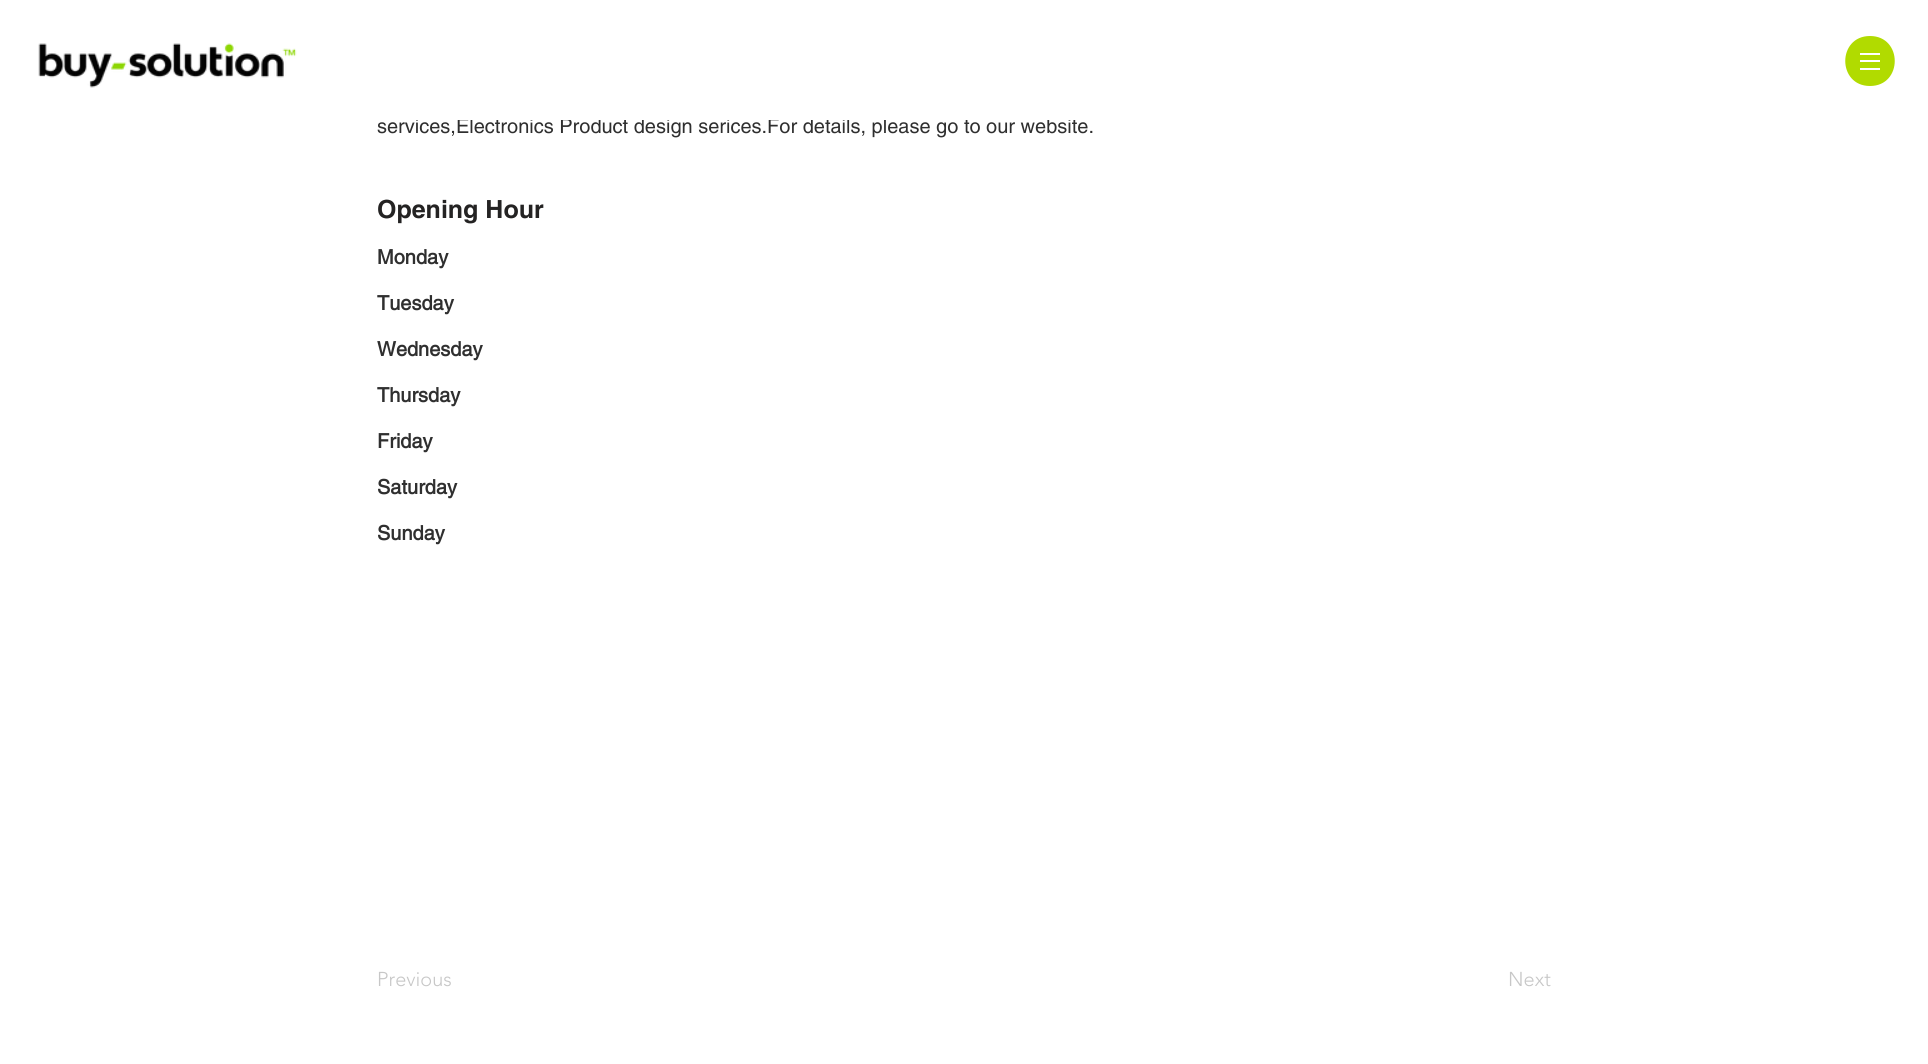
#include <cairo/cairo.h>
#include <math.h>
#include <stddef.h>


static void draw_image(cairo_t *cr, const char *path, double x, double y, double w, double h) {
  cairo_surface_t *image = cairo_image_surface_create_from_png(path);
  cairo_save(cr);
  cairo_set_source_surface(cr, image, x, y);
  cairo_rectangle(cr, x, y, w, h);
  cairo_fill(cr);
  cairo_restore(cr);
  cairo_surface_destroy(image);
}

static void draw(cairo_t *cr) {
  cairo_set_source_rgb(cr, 1, 1, 1);
  cairo_paint(cr);
  draw_image(cr, "images/1.png", 38, 43, 259, 45);
  cairo_set_source_rgb(cr, 177 / 255.0, 219 / 255.0, 0);
  cairo_new_path(cr);
  cairo_move_to(cr, 1870, 36);
  cairo_curve_to(cr, 1837, 36, 1837, 86, 1870, 86);
  cairo_curve_to(cr, 1903, 86, 1903, 36, 1870, 36);
  cairo_close_path(cr);
  cairo_move_to(cr, 1880, 70);
  cairo_line_to(cr, 1860, 70);
  cairo_line_to(cr, 1860, 68);
  cairo_line_to(cr, 1880, 68);
  cairo_close_path(cr);
  cairo_move_to(cr, 1880, 62);
  cairo_line_to(cr, 1860, 62);
  cairo_line_to(cr, 1860, 60);
  cairo_line_to(cr, 1880, 60);
  cairo_close_path(cr);
  cairo_move_to(cr, 1880, 55);
  cairo_line_to(cr, 1860, 55);
  cairo_line_to(cr, 1860, 53);
  cairo_line_to(cr, 1880, 53);
  cairo_close_path(cr);
  cairo_fill(cr);
  cairo_select_font_face(cr, "helvetica", CAIRO_FONT_SLANT_NORMAL, CAIRO_FONT_WEIGHT_NORMAL);
  cairo_set_font_size(cr, 20);
  cairo_set_source_rgb(cr, 47 / 255.0, 47 / 255.0, 47 / 255.0);
  cairo_move_to(cr, 377, 133);
  cairo_show_text(cr, "services,Electronics Product design serices.For details, please go to our website.");
  cairo_set_source_rgb(cr, 1, 1, 1);
  cairo_rectangle(cr, 416, 118, 660, 2);
  cairo_fill(cr);
  cairo_select_font_face(cr, "helvetica", CAIRO_FONT_SLANT_NORMAL, CAIRO_FONT_WEIGHT_BOLD);
  cairo_set_font_size(cr, 25);
  cairo_set_source_rgb(cr, 36 / 255.0, 35 / 255.0, 35 / 255.0);
  cairo_move_to(cr, 377, 218);
  cairo_show_text(cr, "Opening Hour");
  cairo_select_font_face(cr, "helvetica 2", CAIRO_FONT_SLANT_NORMAL, CAIRO_FONT_WEIGHT_BOLD);
  cairo_set_font_size(cr, 20);
  cairo_set_source_rgb(cr, 47 / 255.0, 47 / 255.0, 47 / 255.0);
  cairo_move_to(cr, 377, 264);
  cairo_show_text(cr, "Monday");
  cairo_move_to(cr, 377, 310);
  cairo_show_text(cr, "Tuesday");
  cairo_move_to(cr, 377, 356);
  cairo_show_text(cr, "Wednesday");
  cairo_move_to(cr, 377, 402);
  cairo_show_text(cr, "Thursday");
  cairo_move_to(cr, 377, 448);
  cairo_show_text(cr, "Friday");
  cairo_move_to(cr, 377, 494);
  cairo_show_text(cr, "Saturday");
  cairo_move_to(cr, 377, 540);
  cairo_show_text(cr, "Sunday");
  cairo_select_font_face(cr, "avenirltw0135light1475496 Light", CAIRO_FONT_SLANT_NORMAL, CAIRO_FONT_WEIGHT_NORMAL);
  cairo_set_source_rgb(cr, 199 / 255.0, 199 / 255.0, 199 / 255.0);
  cairo_move_to(cr, 377, 986);
  cairo_show_text(cr, "Previous");
  cairo_move_to(cr, 1508, 986);
  cairo_show_text(cr, "Next");
}

int main(void) {
  cairo_surface_t *surface = cairo_image_surface_create(CAIRO_FORMAT_RGB24, 1928, 1064);
  cairo_t *cr = cairo_create(surface);
  cairo_font_options_t *options = cairo_font_options_create();
  cairo_font_options_set_hint_metrics(options, CAIRO_HINT_METRICS_OFF);
  cairo_font_options_set_hint_style(options, CAIRO_HINT_STYLE_NONE);
  cairo_set_font_options(cr, options);
  cairo_set_miter_limit(cr, 4);
  draw(cr);
  cairo_surface_write_to_png(surface, "out.png");
  cairo_font_options_destroy(options);
  cairo_destroy(cr);
  cairo_surface_destroy(surface);
  return 0;
}
